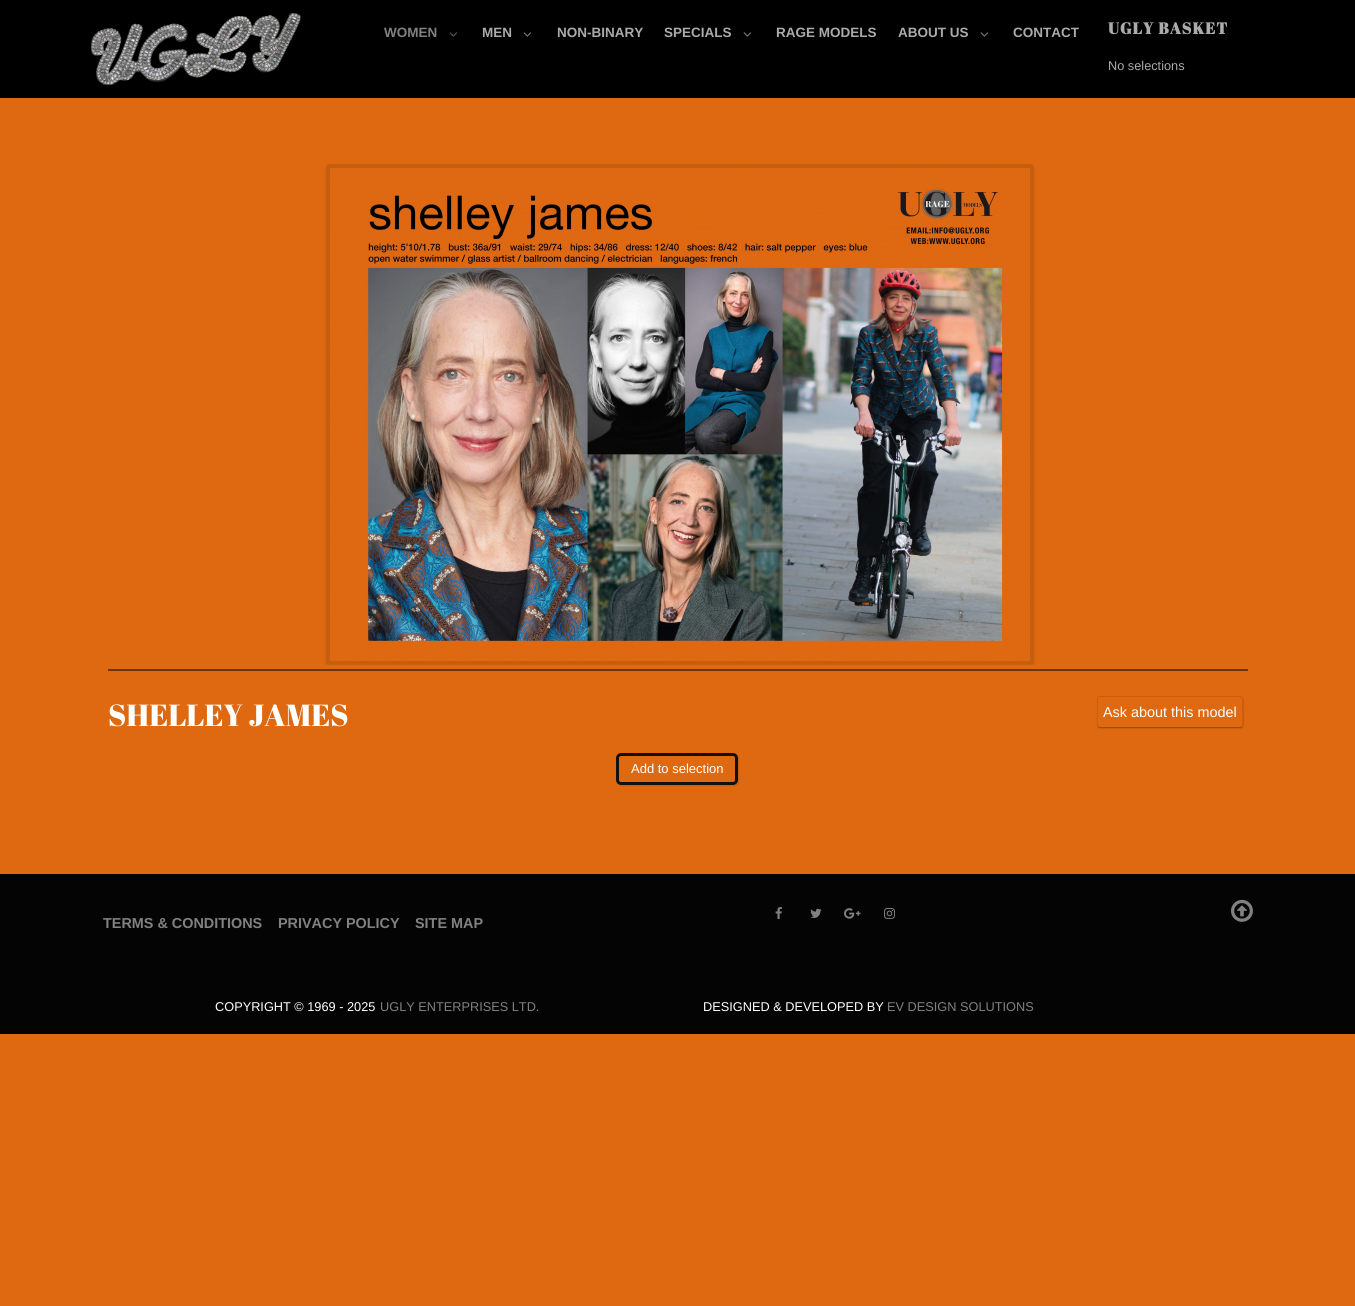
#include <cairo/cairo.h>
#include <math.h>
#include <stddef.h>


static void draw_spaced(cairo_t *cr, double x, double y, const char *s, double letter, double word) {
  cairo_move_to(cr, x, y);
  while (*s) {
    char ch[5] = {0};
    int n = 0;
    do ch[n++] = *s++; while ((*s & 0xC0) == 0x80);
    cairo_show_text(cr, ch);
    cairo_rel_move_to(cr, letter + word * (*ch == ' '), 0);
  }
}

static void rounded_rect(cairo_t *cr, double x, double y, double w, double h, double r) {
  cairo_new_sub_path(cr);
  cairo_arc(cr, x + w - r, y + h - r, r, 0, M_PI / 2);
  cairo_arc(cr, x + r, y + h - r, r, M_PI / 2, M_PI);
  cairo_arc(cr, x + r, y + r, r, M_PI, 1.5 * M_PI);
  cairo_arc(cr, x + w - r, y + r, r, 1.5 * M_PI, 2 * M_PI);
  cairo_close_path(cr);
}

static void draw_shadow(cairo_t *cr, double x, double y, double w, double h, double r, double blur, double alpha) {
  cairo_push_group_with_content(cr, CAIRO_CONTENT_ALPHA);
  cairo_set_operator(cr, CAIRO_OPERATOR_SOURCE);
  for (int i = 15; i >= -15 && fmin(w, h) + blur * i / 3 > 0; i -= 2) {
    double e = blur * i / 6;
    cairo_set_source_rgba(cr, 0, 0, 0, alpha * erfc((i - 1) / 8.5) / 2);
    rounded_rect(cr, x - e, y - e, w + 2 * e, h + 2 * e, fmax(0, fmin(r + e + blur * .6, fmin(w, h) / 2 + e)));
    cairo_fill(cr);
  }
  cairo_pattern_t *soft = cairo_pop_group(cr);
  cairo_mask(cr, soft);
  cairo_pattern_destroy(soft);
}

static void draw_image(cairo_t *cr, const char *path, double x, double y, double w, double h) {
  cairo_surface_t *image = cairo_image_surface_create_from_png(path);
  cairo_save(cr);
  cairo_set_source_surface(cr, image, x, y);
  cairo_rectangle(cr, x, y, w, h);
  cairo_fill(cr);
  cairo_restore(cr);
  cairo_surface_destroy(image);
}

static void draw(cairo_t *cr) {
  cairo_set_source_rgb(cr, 222 / 255.0, 105 / 255.0, 17 / 255.0);
  cairo_paint(cr);
  cairo_set_source_rgb(cr, 0, 0, 0);
  cairo_rectangle(cr, 0, 0, 1355, 98);
  cairo_fill(cr);
  draw_image(cr, "images/1.png", 91, 13, 210, 72);
  draw_image(cr, "images/2.png", 449, 32, 8, 5);
  draw_image(cr, "images/3.png", 523, 32, 9, 5);
  draw_image(cr, "images/3.png", 743, 32, 9, 5);
  draw_image(cr, "images/3.png", 980, 32, 9, 5);
  cairo_set_source_rgb(cr, 111 / 255.0, 53 / 255.0, 9 / 255.0);
  cairo_rectangle(cr, 108, 669, 1140, 2);
  cairo_fill(cr);
  cairo_save(cr);
  cairo_rectangle(cr, 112, 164, 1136, 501);
  cairo_clip(cr);
  cairo_set_fill_rule(cr, CAIRO_FILL_RULE_EVEN_ODD);
  cairo_new_path(cr);
  cairo_move_to(cr, 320, 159);
  cairo_line_to(cr, 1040, 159);
  cairo_line_to(cr, 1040, 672);
  cairo_line_to(cr, 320, 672);
  cairo_close_path(cr);
  cairo_move_to(cr, 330, 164);
  cairo_line_to(cr, 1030, 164);
  cairo_curve_to(cr, 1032, 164, 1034, 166, 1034, 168);
  cairo_line_to(cr, 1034, 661);
  cairo_curve_to(cr, 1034, 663, 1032, 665, 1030, 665);
  cairo_line_to(cr, 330, 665);
  cairo_curve_to(cr, 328, 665, 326, 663, 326, 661);
  cairo_line_to(cr, 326, 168);
  cairo_curve_to(cr, 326, 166, 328, 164, 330, 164);
  cairo_close_path(cr);
  cairo_clip(cr);
  cairo_set_source_rgb(cr, 0, 0, 0);
  draw_shadow(cr, 326, 165, 708, 501, 4, 1.5, 0.1);
  cairo_restore(cr);
  draw_image(cr, "images/4.png", 326, 164, 708, 501);
  cairo_set_source_rgb(cr, 0, 0, 0);
  draw_shadow(cr, 1098, 697, 146, 32, 3, 0.5, 0.1);
  cairo_set_source_rgb(cr, 222 / 255.0, 105 / 255.0, 17 / 255.0);
  rounded_rect(cr, 1097, 696, 146, 32, 3);
  cairo_fill(cr);
  cairo_new_path(cr);
  cairo_move_to(cr, 1242, 727);
  cairo_line_to(cr, 1240, 727.5);
  cairo_line_to(cr, 1100, 727.5);
  cairo_line_to(cr, 1098, 727);
  cairo_set_source_rgba(cr, 0, 0, 0, 0.25);
  cairo_set_line_width(cr, 1);
  cairo_stroke(cr);
  cairo_new_path(cr);
  cairo_move_to(cr, 1098, 727);
  cairo_curve_to(cr, 1096.5, 725, 1097.5, 714.5, 1097.5, 712);
  cairo_line_to(cr, 1097.5, 703.5);
  cairo_curve_to(cr, 1097.5, 701.5, 1096.5, 696.5, 1100, 696.5);
  cairo_line_to(cr, 1240, 696.5);
  cairo_curve_to(cr, 1243.5, 696.5, 1242.5, 701.5, 1242.5, 703.5);
  cairo_line_to(cr, 1242.5, 712);
  cairo_curve_to(cr, 1242.5, 714.5, 1243.5, 725, 1242, 727);
  cairo_set_source_rgba(cr, 0, 0, 0, 0.1);
  cairo_stroke(cr);
  cairo_set_source_rgb(cr, 0, 0, 0);
  draw_shadow(cr, 617, 754, 122, 32, 5, 0.5, 0.1);
  cairo_set_source_rgb(cr, 222 / 255.0, 105 / 255.0, 17 / 255.0);
  rounded_rect(cr, 617.5, 754.5, 119, 29, 3.5);
  cairo_fill_preserve(cr);
  cairo_set_source_rgb(cr, 17 / 255.0, 17 / 255.0, 17 / 255.0);
  cairo_set_line_width(cr, 3);
  cairo_stroke(cr);
  cairo_set_source_rgb(cr, 4 / 255.0, 4 / 255.0, 4 / 255.0);
  cairo_rectangle(cr, 0, 874, 1355, 160);
  cairo_fill(cr);
  draw_image(cr, "images/5.png", 775, 907, 7, 12);
  draw_image(cr, "images/6.png", 810, 908, 12, 10);
  draw_image(cr, "images/7.png", 844, 908, 17, 11);
  draw_image(cr, "images/8.png", 884, 907, 11, 12);
  draw_image(cr, "images/9.png", 1231, 899, 22, 23);
  cairo_select_font_face(cr, "Liberation Sans", CAIRO_FONT_SLANT_NORMAL, CAIRO_FONT_WEIGHT_BOLD);
  cairo_set_font_size(cr, 13.5);
  cairo_set_source_rgb(cr, 129 / 255.0, 129 / 255.0, 129 / 255.0);
  cairo_move_to(cr, 384, 37);
  cairo_show_text(cr, "WOMEN");
  cairo_set_source_rgb(cr, 171 / 255.0, 171 / 255.0, 171 / 255.0);
  cairo_move_to(cr, 482, 37);
  cairo_show_text(cr, "MEN");
  cairo_move_to(cr, 557, 37);
  cairo_show_text(cr, "NON-BINARY");
  cairo_move_to(cr, 664, 37);
  cairo_show_text(cr, "SPECIALS");
  cairo_move_to(cr, 776, 37);
  cairo_show_text(cr, "RAGE MODELS");
  cairo_move_to(cr, 898, 37);
  cairo_show_text(cr, "ABOUT US");
  cairo_move_to(cr, 1013, 37);
  cairo_show_text(cr, "CONTACT");
  cairo_select_font_face(cr, "Abril Fatface", CAIRO_FONT_SLANT_NORMAL, CAIRO_FONT_WEIGHT_BOLD);
  cairo_set_font_size(cr, 16);
  draw_spaced(cr, 1108, 34, "UGLY BASKET", 1, 0);
  cairo_select_font_face(cr, "Liberation Sans", CAIRO_FONT_SLANT_NORMAL, CAIRO_FONT_WEIGHT_NORMAL);
  cairo_set_font_size(cr, 12.75);
  cairo_move_to(cr, 1108, 70);
  cairo_show_text(cr, "No selections");
  cairo_select_font_face(cr, "Abril Fatface", CAIRO_FONT_SLANT_NORMAL, CAIRO_FONT_WEIGHT_NORMAL);
  cairo_set_font_size(cr, 30.5);
  cairo_set_source_rgb(cr, 1, 1, 1);
  cairo_move_to(cr, 108, 726);
  cairo_show_text(cr, "SHELLEY JAMES");
  cairo_select_font_face(cr, "Liberation Sans", CAIRO_FONT_SLANT_NORMAL, CAIRO_FONT_WEIGHT_NORMAL);
  cairo_set_font_size(cr, 14.4);
  cairo_move_to(cr, 1103, 717);
  cairo_show_text(cr, "Ask about this model");
  cairo_set_font_size(cr, 13);
  cairo_move_to(cr, 631, 773);
  cairo_show_text(cr, "Add to selection");
  cairo_select_font_face(cr, "Liberation Sans", CAIRO_FONT_SLANT_NORMAL, CAIRO_FONT_WEIGHT_BOLD);
  cairo_set_font_size(cr, 14.4);
  cairo_set_source_rgb(cr, 129 / 255.0, 129 / 255.0, 129 / 255.0);
  cairo_move_to(cr, 103, 928);
  cairo_show_text(cr, "TERMS & CONDITIONS");
  cairo_move_to(cr, 278, 928);
  cairo_show_text(cr, "PRIVACY POLICY");
  cairo_move_to(cr, 415, 928);
  cairo_show_text(cr, "SITE MAP");
  cairo_select_font_face(cr, "Liberation Sans", CAIRO_FONT_SLANT_NORMAL, CAIRO_FONT_WEIGHT_NORMAL);
  cairo_set_font_size(cr, 12.75);
  cairo_set_source_rgb(cr, 1, 1, 1);
  cairo_move_to(cr, 215, 1011);
  cairo_show_text(cr, "COPYRIGHT © 1969 - 2025");
  cairo_set_source_rgb(cr, 129 / 255.0, 129 / 255.0, 129 / 255.0);
  cairo_move_to(cr, 380, 1011);
  cairo_show_text(cr, "UGLY ENTERPRISES LTD.");
  cairo_set_source_rgb(cr, 1, 1, 1);
  cairo_move_to(cr, 703, 1011);
  cairo_show_text(cr, "DESIGNED & DEVELOPED BY");
  cairo_set_source_rgb(cr, 129 / 255.0, 129 / 255.0, 129 / 255.0);
  cairo_move_to(cr, 887, 1011);
  cairo_show_text(cr, "EV DESIGN SOLUTIONS");
}

int main(void) {
  cairo_surface_t *surface = cairo_image_surface_create(CAIRO_FORMAT_RGB24, 1355, 1306);
  cairo_t *cr = cairo_create(surface);
  cairo_font_options_t *options = cairo_font_options_create();
  cairo_font_options_set_hint_metrics(options, CAIRO_HINT_METRICS_OFF);
  cairo_font_options_set_hint_style(options, CAIRO_HINT_STYLE_NONE);
  cairo_set_font_options(cr, options);
  cairo_set_miter_limit(cr, 4);
  draw(cr);
  cairo_surface_write_to_png(surface, "out.png");
  cairo_font_options_destroy(options);
  cairo_destroy(cr);
  cairo_surface_destroy(surface);
  return 0;
}
